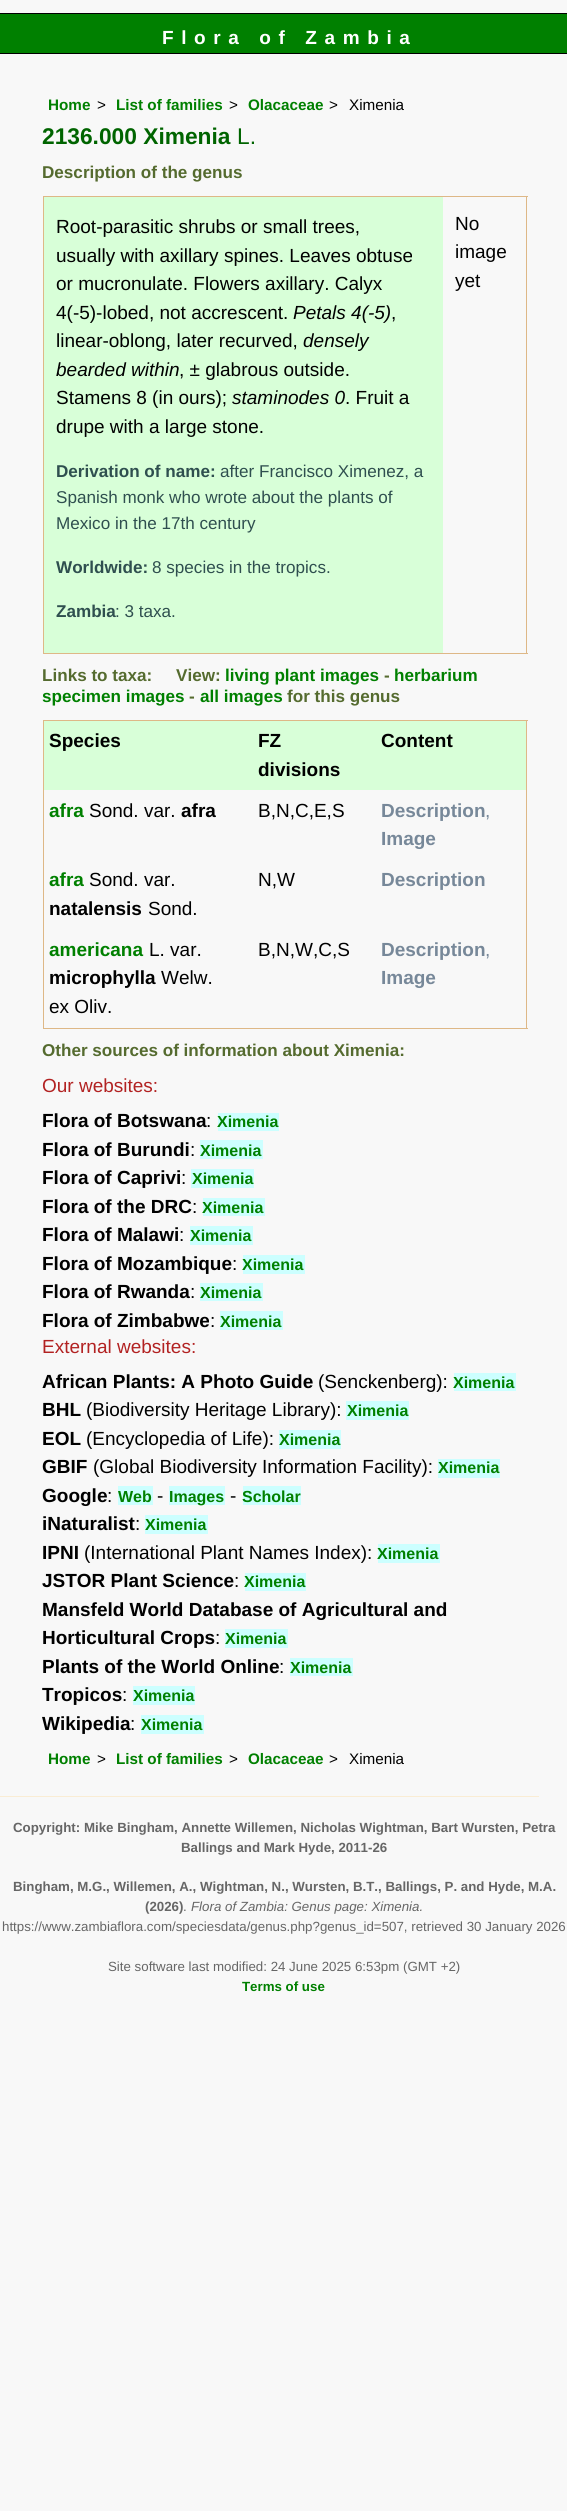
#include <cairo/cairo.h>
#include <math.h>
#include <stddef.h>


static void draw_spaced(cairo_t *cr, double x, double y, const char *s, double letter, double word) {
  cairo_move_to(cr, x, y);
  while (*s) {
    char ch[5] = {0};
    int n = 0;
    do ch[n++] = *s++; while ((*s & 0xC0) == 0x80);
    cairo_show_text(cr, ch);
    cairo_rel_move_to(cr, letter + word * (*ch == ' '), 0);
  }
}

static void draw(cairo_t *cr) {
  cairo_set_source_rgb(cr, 248 / 255.0, 248 / 255.0, 248 / 255.0);
  cairo_paint(cr);
  cairo_set_source_rgb(cr, 0, 128 / 255.0, 0);
  cairo_rectangle(cr, 0, 14, 567, 39);
  cairo_fill(cr);
  cairo_set_source_rgb(cr, 0, 0, 0);
  cairo_rectangle(cr, 0, 13, 567, 1);
  cairo_fill(cr);
  cairo_rectangle(cr, 0, 53, 567, 1);
  cairo_fill(cr);
  cairo_set_source_rgb(cr, 222 / 255.0, 184 / 255.0, 135 / 255.0);
  cairo_rectangle(cr, 43, 196, 485, 1);
  cairo_fill(cr);
  cairo_rectangle(cr, 526, 196, 1, 458);
  cairo_fill(cr);
  cairo_rectangle(cr, 43, 653, 485, 1);
  cairo_fill(cr);
  cairo_rectangle(cr, 43, 196, 1, 458);
  cairo_fill(cr);
  cairo_set_source_rgb(cr, 216 / 255.0, 1, 216 / 255.0);
  cairo_rectangle(cr, 44, 197, 399, 456);
  cairo_fill(cr);
  cairo_set_source_rgb(cr, 222 / 255.0, 184 / 255.0, 135 / 255.0);
  cairo_rectangle(cr, 43, 720, 485, 1);
  cairo_fill(cr);
  cairo_rectangle(cr, 526, 720, 1, 309);
  cairo_fill(cr);
  cairo_rectangle(cr, 43, 1028, 485, 1);
  cairo_fill(cr);
  cairo_rectangle(cr, 43, 720, 1, 309);
  cairo_fill(cr);
  cairo_set_source_rgb(cr, 216 / 255.0, 1, 216 / 255.0);
  cairo_rectangle(cr, 44, 721, 482, 69);
  cairo_fill(cr);
  cairo_set_source_rgb(cr, 204 / 255.0, 1, 1);
  cairo_rectangle(cr, 218, 1113, 61, 18);
  cairo_fill(cr);
  cairo_rectangle(cr, 200, 1140, 63, 19);
  cairo_fill(cr);
  cairo_rectangle(cr, 191, 1169, 63, 19);
  cairo_fill(cr);
  cairo_rectangle(cr, 203, 1198, 62, 18);
  cairo_fill(cr);
  cairo_rectangle(cr, 190, 1226, 63, 19);
  cairo_fill(cr);
  cairo_rectangle(cr, 243, 1255, 62, 19);
  cairo_fill(cr);
  cairo_rectangle(cr, 200, 1283, 63, 18);
  cairo_fill(cr);
  cairo_rectangle(cr, 220, 1311, 63, 19);
  cairo_fill(cr);
  cairo_rectangle(cr, 454, 1373, 62, 18);
  cairo_fill(cr);
  cairo_rectangle(cr, 346, 1401, 63, 19);
  cairo_fill(cr);
  cairo_rectangle(cr, 279, 1430, 62, 19);
  cairo_fill(cr);
  cairo_rectangle(cr, 438, 1459, 62, 19);
  cairo_fill(cr);
  cairo_rectangle(cr, 118, 1486, 35, 19);
  cairo_fill(cr);
  cairo_rectangle(cr, 169, 1486, 56, 19);
  cairo_fill(cr);
  cairo_rectangle(cr, 243, 1486, 58, 19);
  cairo_fill(cr);
  cairo_rectangle(cr, 145, 1515, 63, 19);
  cairo_fill(cr);
  cairo_rectangle(cr, 378, 1544, 62, 19);
  cairo_fill(cr);
  cairo_rectangle(cr, 245, 1573, 61, 18);
  cairo_fill(cr);
  cairo_rectangle(cr, 225, 1629, 63, 19);
  cairo_fill(cr);
  cairo_rectangle(cr, 290, 1658, 63, 18);
  cairo_fill(cr);
  cairo_rectangle(cr, 133, 1686, 62, 19);
  cairo_fill(cr);
  cairo_rectangle(cr, 141, 1715, 63, 19);
  cairo_fill(cr);
  cairo_set_source_rgb(cr, 250 / 255.0, 237 / 255.0, 212 / 255.0);
  cairo_rectangle(cr, 0, 1796, 539, 1);
  cairo_fill(cr);
  cairo_select_font_face(cr, "Liberation Sans", CAIRO_FONT_SLANT_NORMAL, CAIRO_FONT_WEIGHT_BOLD);
  cairo_set_font_size(cr, 19);
  cairo_set_source_rgb(cr, 1, 1, 1);
  draw_spaced(cr, 162, 44, "Flora of Zambia", 7.6, 0);
  cairo_set_font_size(cr, 15.25);
  cairo_set_source_rgb(cr, 0, 128 / 255.0, 0);
  cairo_move_to(cr, 48, 110);
  cairo_show_text(cr, "Home");
  cairo_select_font_face(cr, "Liberation Sans", CAIRO_FONT_SLANT_NORMAL, CAIRO_FONT_WEIGHT_NORMAL);
  cairo_set_source_rgb(cr, 0, 0, 0);
  cairo_move_to(cr, 97, 110);
  cairo_show_text(cr, ">");
  cairo_select_font_face(cr, "Liberation Sans", CAIRO_FONT_SLANT_NORMAL, CAIRO_FONT_WEIGHT_BOLD);
  cairo_set_source_rgb(cr, 0, 128 / 255.0, 0);
  cairo_move_to(cr, 116, 110);
  cairo_show_text(cr, "List of families");
  cairo_select_font_face(cr, "Liberation Sans", CAIRO_FONT_SLANT_NORMAL, CAIRO_FONT_WEIGHT_NORMAL);
  cairo_set_source_rgb(cr, 0, 0, 0);
  cairo_move_to(cr, 229, 110);
  cairo_show_text(cr, ">");
  cairo_select_font_face(cr, "Liberation Sans", CAIRO_FONT_SLANT_NORMAL, CAIRO_FONT_WEIGHT_BOLD);
  cairo_set_source_rgb(cr, 0, 128 / 255.0, 0);
  cairo_move_to(cr, 248, 110);
  cairo_show_text(cr, "Olacaceae");
  cairo_select_font_face(cr, "Liberation Sans", CAIRO_FONT_SLANT_NORMAL, CAIRO_FONT_WEIGHT_NORMAL);
  cairo_set_source_rgb(cr, 0, 0, 0);
  cairo_move_to(cr, 329, 110);
  cairo_show_text(cr, ">");
  cairo_move_to(cr, 349, 110);
  cairo_show_text(cr, "Ximenia");
  cairo_select_font_face(cr, "Liberation Sans", CAIRO_FONT_SLANT_NORMAL, CAIRO_FONT_WEIGHT_BOLD);
  cairo_set_font_size(cr, 22.75);
  cairo_set_source_rgb(cr, 0, 100 / 255.0, 0);
  cairo_move_to(cr, 42, 144);
  cairo_show_text(cr, "2136.000 Ximenia");
  cairo_select_font_face(cr, "Liberation Sans", CAIRO_FONT_SLANT_NORMAL, CAIRO_FONT_WEIGHT_NORMAL);
  cairo_move_to(cr, 237, 144);
  cairo_show_text(cr, "L.");
  cairo_select_font_face(cr, "Liberation Sans", CAIRO_FONT_SLANT_NORMAL, CAIRO_FONT_WEIGHT_BOLD);
  cairo_set_font_size(cr, 17.1);
  cairo_set_source_rgb(cr, 85 / 255.0, 107 / 255.0, 47 / 255.0);
  cairo_move_to(cr, 42, 178);
  cairo_show_text(cr, "Description of the genus");
  cairo_select_font_face(cr, "Liberation Sans", CAIRO_FONT_SLANT_NORMAL, CAIRO_FONT_WEIGHT_NORMAL);
  cairo_set_font_size(cr, 19);
  cairo_set_source_rgb(cr, 0, 0, 0);
  cairo_move_to(cr, 56, 233);
  cairo_show_text(cr, "Root-parasitic shrubs or small trees,");
  cairo_move_to(cr, 56, 262);
  cairo_show_text(cr, "usually with axillary spines. Leaves obtuse");
  cairo_move_to(cr, 56, 290);
  cairo_show_text(cr, "or mucronulate. Flowers axillary. Calyx");
  cairo_move_to(cr, 56, 319);
  cairo_show_text(cr, "4(-5)-lobed, not accrescent.");
  cairo_select_font_face(cr, "Liberation Sans", CAIRO_FONT_SLANT_ITALIC, CAIRO_FONT_WEIGHT_NORMAL);
  cairo_move_to(cr, 293, 319);
  cairo_show_text(cr, "Petals 4(-5)");
  cairo_select_font_face(cr, "Liberation Sans", CAIRO_FONT_SLANT_NORMAL, CAIRO_FONT_WEIGHT_NORMAL);
  cairo_move_to(cr, 391, 319);
  cairo_show_text(cr, ",");
  cairo_move_to(cr, 56, 347);
  cairo_show_text(cr, "linear-oblong, later recurved,");
  cairo_select_font_face(cr, "Liberation Sans", CAIRO_FONT_SLANT_ITALIC, CAIRO_FONT_WEIGHT_NORMAL);
  cairo_move_to(cr, 303, 347);
  cairo_show_text(cr, "densely");
  cairo_move_to(cr, 56, 376);
  cairo_show_text(cr, "bearded within");
  cairo_select_font_face(cr, "Liberation Sans", CAIRO_FONT_SLANT_NORMAL, CAIRO_FONT_WEIGHT_NORMAL);
  cairo_move_to(cr, 179, 376);
  cairo_show_text(cr, ", ± glabrous outside.");
  cairo_move_to(cr, 56, 404);
  cairo_show_text(cr, "Stamens 8 (in ours);");
  cairo_select_font_face(cr, "Liberation Sans", CAIRO_FONT_SLANT_ITALIC, CAIRO_FONT_WEIGHT_NORMAL);
  cairo_move_to(cr, 232, 404);
  cairo_show_text(cr, "staminodes 0");
  cairo_select_font_face(cr, "Liberation Sans", CAIRO_FONT_SLANT_NORMAL, CAIRO_FONT_WEIGHT_NORMAL);
  cairo_move_to(cr, 345, 404);
  cairo_show_text(cr, ". Fruit a");
  cairo_move_to(cr, 56, 433);
  cairo_show_text(cr, "drupe with a large stone.");
  cairo_select_font_face(cr, "Liberation Sans", CAIRO_FONT_SLANT_NORMAL, CAIRO_FONT_WEIGHT_BOLD);
  cairo_set_font_size(cr, 17.1);
  cairo_set_source_rgb(cr, 47 / 255.0, 79 / 255.0, 79 / 255.0);
  cairo_move_to(cr, 56, 477);
  cairo_show_text(cr, "Derivation of name:");
  cairo_select_font_face(cr, "Liberation Sans", CAIRO_FONT_SLANT_NORMAL, CAIRO_FONT_WEIGHT_NORMAL);
  cairo_move_to(cr, 220, 477);
  cairo_show_text(cr, "after Francisco Ximenez, a");
  cairo_move_to(cr, 56, 503);
  cairo_show_text(cr, "Spanish monk who wrote about the plants of");
  cairo_move_to(cr, 56, 529);
  cairo_show_text(cr, "Mexico in the 17th century");
  cairo_select_font_face(cr, "Liberation Sans", CAIRO_FONT_SLANT_NORMAL, CAIRO_FONT_WEIGHT_BOLD);
  cairo_move_to(cr, 56, 573);
  cairo_show_text(cr, "Worldwide:");
  cairo_select_font_face(cr, "Liberation Sans", CAIRO_FONT_SLANT_NORMAL, CAIRO_FONT_WEIGHT_NORMAL);
  cairo_move_to(cr, 152, 573);
  cairo_show_text(cr, "8 species in the tropics.");
  cairo_select_font_face(cr, "Liberation Sans", CAIRO_FONT_SLANT_NORMAL, CAIRO_FONT_WEIGHT_BOLD);
  cairo_move_to(cr, 56, 617);
  cairo_show_text(cr, "Zambia");
  cairo_select_font_face(cr, "Liberation Sans", CAIRO_FONT_SLANT_NORMAL, CAIRO_FONT_WEIGHT_NORMAL);
  cairo_move_to(cr, 115, 617);
  cairo_show_text(cr, ": 3 taxa.");
  cairo_set_font_size(cr, 19);
  cairo_set_source_rgb(cr, 0, 0, 0);
  cairo_move_to(cr, 455, 230);
  cairo_show_text(cr, "No");
  cairo_move_to(cr, 455, 258);
  cairo_show_text(cr, "image");
  cairo_move_to(cr, 455, 287);
  cairo_show_text(cr, "yet");
  cairo_select_font_face(cr, "Liberation Sans", CAIRO_FONT_SLANT_NORMAL, CAIRO_FONT_WEIGHT_BOLD);
  cairo_set_font_size(cr, 17.1);
  cairo_set_source_rgb(cr, 85 / 255.0, 107 / 255.0, 47 / 255.0);
  cairo_move_to(cr, 42, 681);
  cairo_show_text(cr, "Links to taxa:     View:");
  cairo_set_source_rgb(cr, 0, 128 / 255.0, 0);
  cairo_move_to(cr, 225, 681);
  cairo_show_text(cr, "living plant images");
  cairo_set_source_rgb(cr, 85 / 255.0, 107 / 255.0, 47 / 255.0);
  cairo_move_to(cr, 384, 681);
  cairo_show_text(cr, "-");
  cairo_set_source_rgb(cr, 0, 128 / 255.0, 0);
  cairo_move_to(cr, 394, 681);
  cairo_show_text(cr, "herbarium");
  cairo_move_to(cr, 42, 702);
  cairo_show_text(cr, "specimen images");
  cairo_set_source_rgb(cr, 85 / 255.0, 107 / 255.0, 47 / 255.0);
  cairo_move_to(cr, 189, 702);
  cairo_show_text(cr, "-");
  cairo_set_source_rgb(cr, 0, 128 / 255.0, 0);
  cairo_move_to(cr, 200, 702);
  cairo_show_text(cr, "all images");
  cairo_set_source_rgb(cr, 85 / 255.0, 107 / 255.0, 47 / 255.0);
  cairo_move_to(cr, 287, 702);
  cairo_show_text(cr, "for this genus");
  cairo_set_font_size(cr, 19);
  cairo_set_source_rgb(cr, 0, 0, 0);
  cairo_move_to(cr, 49, 747);
  cairo_show_text(cr, "Species");
  cairo_move_to(cr, 258, 747);
  cairo_show_text(cr, "FZ");
  cairo_move_to(cr, 258, 776);
  cairo_show_text(cr, "divisions");
  cairo_move_to(cr, 381, 747);
  cairo_show_text(cr, "Content");
  cairo_set_source_rgb(cr, 0, 128 / 255.0, 0);
  cairo_move_to(cr, 49, 817);
  cairo_show_text(cr, "afra");
  cairo_select_font_face(cr, "Liberation Sans", CAIRO_FONT_SLANT_NORMAL, CAIRO_FONT_WEIGHT_NORMAL);
  cairo_set_source_rgb(cr, 0, 0, 0);
  cairo_move_to(cr, 89, 817);
  cairo_show_text(cr, "Sond. var.");
  cairo_select_font_face(cr, "Liberation Sans", CAIRO_FONT_SLANT_NORMAL, CAIRO_FONT_WEIGHT_BOLD);
  cairo_move_to(cr, 181, 817);
  cairo_show_text(cr, "afra");
  cairo_select_font_face(cr, "Liberation Sans", CAIRO_FONT_SLANT_NORMAL, CAIRO_FONT_WEIGHT_NORMAL);
  cairo_move_to(cr, 258, 817);
  cairo_show_text(cr, "B,N,C,E,S");
  cairo_select_font_face(cr, "Liberation Sans", CAIRO_FONT_SLANT_NORMAL, CAIRO_FONT_WEIGHT_BOLD);
  cairo_set_source_rgb(cr, 119 / 255.0, 136 / 255.0, 153 / 255.0);
  cairo_move_to(cr, 381, 817);
  cairo_show_text(cr, "Description");
  cairo_select_font_face(cr, "Liberation Sans", CAIRO_FONT_SLANT_NORMAL, CAIRO_FONT_WEIGHT_NORMAL);
  cairo_move_to(cr, 485, 817);
  cairo_show_text(cr, ",");
  cairo_select_font_face(cr, "Liberation Sans", CAIRO_FONT_SLANT_NORMAL, CAIRO_FONT_WEIGHT_BOLD);
  cairo_move_to(cr, 381, 845);
  cairo_show_text(cr, "Image");
  cairo_set_source_rgb(cr, 0, 128 / 255.0, 0);
  cairo_move_to(cr, 49, 886);
  cairo_show_text(cr, "afra");
  cairo_select_font_face(cr, "Liberation Sans", CAIRO_FONT_SLANT_NORMAL, CAIRO_FONT_WEIGHT_NORMAL);
  cairo_set_source_rgb(cr, 0, 0, 0);
  cairo_move_to(cr, 89, 886);
  cairo_show_text(cr, "Sond. var.");
  cairo_select_font_face(cr, "Liberation Sans", CAIRO_FONT_SLANT_NORMAL, CAIRO_FONT_WEIGHT_BOLD);
  cairo_move_to(cr, 49, 915);
  cairo_show_text(cr, "natalensis");
  cairo_select_font_face(cr, "Liberation Sans", CAIRO_FONT_SLANT_NORMAL, CAIRO_FONT_WEIGHT_NORMAL);
  cairo_move_to(cr, 148, 915);
  cairo_show_text(cr, "Sond.");
  cairo_move_to(cr, 258, 886);
  cairo_show_text(cr, "N,W");
  cairo_select_font_face(cr, "Liberation Sans", CAIRO_FONT_SLANT_NORMAL, CAIRO_FONT_WEIGHT_BOLD);
  cairo_set_source_rgb(cr, 119 / 255.0, 136 / 255.0, 153 / 255.0);
  cairo_move_to(cr, 381, 886);
  cairo_show_text(cr, "Description");
  cairo_set_source_rgb(cr, 0, 128 / 255.0, 0);
  cairo_move_to(cr, 49, 956);
  cairo_show_text(cr, "americana");
  cairo_select_font_face(cr, "Liberation Sans", CAIRO_FONT_SLANT_NORMAL, CAIRO_FONT_WEIGHT_NORMAL);
  cairo_set_source_rgb(cr, 0, 0, 0);
  cairo_move_to(cr, 149, 956);
  cairo_show_text(cr, "L. var.");
  cairo_select_font_face(cr, "Liberation Sans", CAIRO_FONT_SLANT_NORMAL, CAIRO_FONT_WEIGHT_BOLD);
  cairo_move_to(cr, 49, 984);
  cairo_show_text(cr, "microphylla");
  cairo_select_font_face(cr, "Liberation Sans", CAIRO_FONT_SLANT_NORMAL, CAIRO_FONT_WEIGHT_NORMAL);
  cairo_move_to(cr, 161, 984);
  cairo_show_text(cr, "Welw.");
  cairo_move_to(cr, 49, 1013);
  cairo_show_text(cr, "ex Oliv.");
  cairo_move_to(cr, 258, 956);
  cairo_show_text(cr, "B,N,W,C,S");
  cairo_select_font_face(cr, "Liberation Sans", CAIRO_FONT_SLANT_NORMAL, CAIRO_FONT_WEIGHT_BOLD);
  cairo_set_source_rgb(cr, 119 / 255.0, 136 / 255.0, 153 / 255.0);
  cairo_move_to(cr, 381, 956);
  cairo_show_text(cr, "Description");
  cairo_select_font_face(cr, "Liberation Sans", CAIRO_FONT_SLANT_NORMAL, CAIRO_FONT_WEIGHT_NORMAL);
  cairo_move_to(cr, 485, 956);
  cairo_show_text(cr, ",");
  cairo_select_font_face(cr, "Liberation Sans", CAIRO_FONT_SLANT_NORMAL, CAIRO_FONT_WEIGHT_BOLD);
  cairo_move_to(cr, 381, 984);
  cairo_show_text(cr, "Image");
  cairo_set_font_size(cr, 17.1);
  cairo_set_source_rgb(cr, 85 / 255.0, 107 / 255.0, 47 / 255.0);
  cairo_move_to(cr, 42, 1056);
  cairo_show_text(cr, "Other sources of information about Ximenia:");
  cairo_select_font_face(cr, "Liberation Sans", CAIRO_FONT_SLANT_NORMAL, CAIRO_FONT_WEIGHT_NORMAL);
  cairo_set_font_size(cr, 19);
  cairo_set_source_rgb(cr, 178 / 255.0, 34 / 255.0, 34 / 255.0);
  cairo_move_to(cr, 42, 1092);
  cairo_show_text(cr, "Our websites:");
  cairo_select_font_face(cr, "Liberation Sans", CAIRO_FONT_SLANT_NORMAL, CAIRO_FONT_WEIGHT_BOLD);
  cairo_set_source_rgb(cr, 0, 0, 0);
  cairo_move_to(cr, 42, 1127);
  cairo_show_text(cr, "Flora of Botswana");
  cairo_select_font_face(cr, "Liberation Sans", CAIRO_FONT_SLANT_NORMAL, CAIRO_FONT_WEIGHT_NORMAL);
  cairo_move_to(cr, 206, 1127);
  cairo_show_text(cr, ":");
  cairo_select_font_face(cr, "Liberation Sans", CAIRO_FONT_SLANT_NORMAL, CAIRO_FONT_WEIGHT_BOLD);
  cairo_set_font_size(cr, 16);
  cairo_set_source_rgb(cr, 0, 128 / 255.0, 0);
  cairo_move_to(cr, 217, 1127);
  cairo_show_text(cr, "Ximenia");
  cairo_set_font_size(cr, 19);
  cairo_set_source_rgb(cr, 0, 0, 0);
  cairo_move_to(cr, 42, 1156);
  cairo_show_text(cr, "Flora of Burundi");
  cairo_select_font_face(cr, "Liberation Sans", CAIRO_FONT_SLANT_NORMAL, CAIRO_FONT_WEIGHT_NORMAL);
  cairo_move_to(cr, 190, 1156);
  cairo_show_text(cr, ":");
  cairo_select_font_face(cr, "Liberation Sans", CAIRO_FONT_SLANT_NORMAL, CAIRO_FONT_WEIGHT_BOLD);
  cairo_set_font_size(cr, 16);
  cairo_set_source_rgb(cr, 0, 128 / 255.0, 0);
  cairo_move_to(cr, 200, 1156);
  cairo_show_text(cr, "Ximenia");
  cairo_set_font_size(cr, 19);
  cairo_set_source_rgb(cr, 0, 0, 0);
  cairo_move_to(cr, 42, 1184);
  cairo_show_text(cr, "Flora of Caprivi");
  cairo_select_font_face(cr, "Liberation Sans", CAIRO_FONT_SLANT_NORMAL, CAIRO_FONT_WEIGHT_NORMAL);
  cairo_move_to(cr, 181, 1184);
  cairo_show_text(cr, ":");
  cairo_select_font_face(cr, "Liberation Sans", CAIRO_FONT_SLANT_NORMAL, CAIRO_FONT_WEIGHT_BOLD);
  cairo_set_font_size(cr, 16);
  cairo_set_source_rgb(cr, 0, 128 / 255.0, 0);
  cairo_move_to(cr, 192, 1184);
  cairo_show_text(cr, "Ximenia");
  cairo_set_font_size(cr, 19);
  cairo_set_source_rgb(cr, 0, 0, 0);
  cairo_move_to(cr, 42, 1213);
  cairo_show_text(cr, "Flora of the DRC");
  cairo_select_font_face(cr, "Liberation Sans", CAIRO_FONT_SLANT_NORMAL, CAIRO_FONT_WEIGHT_NORMAL);
  cairo_move_to(cr, 192, 1213);
  cairo_show_text(cr, ":");
  cairo_select_font_face(cr, "Liberation Sans", CAIRO_FONT_SLANT_NORMAL, CAIRO_FONT_WEIGHT_BOLD);
  cairo_set_font_size(cr, 16);
  cairo_set_source_rgb(cr, 0, 128 / 255.0, 0);
  cairo_move_to(cr, 202, 1213);
  cairo_show_text(cr, "Ximenia");
  cairo_set_font_size(cr, 19);
  cairo_set_source_rgb(cr, 0, 0, 0);
  cairo_move_to(cr, 42, 1241);
  cairo_show_text(cr, "Flora of Malawi");
  cairo_select_font_face(cr, "Liberation Sans", CAIRO_FONT_SLANT_NORMAL, CAIRO_FONT_WEIGHT_NORMAL);
  cairo_move_to(cr, 179, 1241);
  cairo_show_text(cr, ":");
  cairo_select_font_face(cr, "Liberation Sans", CAIRO_FONT_SLANT_NORMAL, CAIRO_FONT_WEIGHT_BOLD);
  cairo_set_font_size(cr, 16);
  cairo_set_source_rgb(cr, 0, 128 / 255.0, 0);
  cairo_move_to(cr, 190, 1241);
  cairo_show_text(cr, "Ximenia");
  cairo_set_font_size(cr, 19);
  cairo_set_source_rgb(cr, 0, 0, 0);
  cairo_move_to(cr, 42, 1270);
  cairo_show_text(cr, "Flora of Mozambique");
  cairo_select_font_face(cr, "Liberation Sans", CAIRO_FONT_SLANT_NORMAL, CAIRO_FONT_WEIGHT_NORMAL);
  cairo_move_to(cr, 232, 1270);
  cairo_show_text(cr, ":");
  cairo_select_font_face(cr, "Liberation Sans", CAIRO_FONT_SLANT_NORMAL, CAIRO_FONT_WEIGHT_BOLD);
  cairo_set_font_size(cr, 16);
  cairo_set_source_rgb(cr, 0, 128 / 255.0, 0);
  cairo_move_to(cr, 242, 1270);
  cairo_show_text(cr, "Ximenia");
  cairo_set_font_size(cr, 19);
  cairo_set_source_rgb(cr, 0, 0, 0);
  cairo_move_to(cr, 42, 1298);
  cairo_show_text(cr, "Flora of Rwanda");
  cairo_select_font_face(cr, "Liberation Sans", CAIRO_FONT_SLANT_NORMAL, CAIRO_FONT_WEIGHT_NORMAL);
  cairo_move_to(cr, 190, 1298);
  cairo_show_text(cr, ":");
  cairo_select_font_face(cr, "Liberation Sans", CAIRO_FONT_SLANT_NORMAL, CAIRO_FONT_WEIGHT_BOLD);
  cairo_set_font_size(cr, 16);
  cairo_set_source_rgb(cr, 0, 128 / 255.0, 0);
  cairo_move_to(cr, 200, 1298);
  cairo_show_text(cr, "Ximenia");
  cairo_set_font_size(cr, 19);
  cairo_set_source_rgb(cr, 0, 0, 0);
  cairo_move_to(cr, 42, 1327);
  cairo_show_text(cr, "Flora of Zimbabwe");
  cairo_select_font_face(cr, "Liberation Sans", CAIRO_FONT_SLANT_NORMAL, CAIRO_FONT_WEIGHT_NORMAL);
  cairo_move_to(cr, 210, 1327);
  cairo_show_text(cr, ":");
  cairo_select_font_face(cr, "Liberation Sans", CAIRO_FONT_SLANT_NORMAL, CAIRO_FONT_WEIGHT_BOLD);
  cairo_set_font_size(cr, 16);
  cairo_set_source_rgb(cr, 0, 128 / 255.0, 0);
  cairo_move_to(cr, 220, 1327);
  cairo_show_text(cr, "Ximenia");
  cairo_select_font_face(cr, "Liberation Sans", CAIRO_FONT_SLANT_NORMAL, CAIRO_FONT_WEIGHT_NORMAL);
  cairo_set_font_size(cr, 19);
  cairo_set_source_rgb(cr, 178 / 255.0, 34 / 255.0, 34 / 255.0);
  cairo_move_to(cr, 42, 1353);
  cairo_show_text(cr, "External websites:");
  cairo_select_font_face(cr, "Liberation Sans", CAIRO_FONT_SLANT_NORMAL, CAIRO_FONT_WEIGHT_BOLD);
  cairo_set_source_rgb(cr, 0, 0, 0);
  cairo_move_to(cr, 42, 1388);
  cairo_show_text(cr, "African Plants: A Photo Guide");
  cairo_select_font_face(cr, "Liberation Sans", CAIRO_FONT_SLANT_NORMAL, CAIRO_FONT_WEIGHT_NORMAL);
  cairo_move_to(cr, 318, 1388);
  cairo_show_text(cr, "(Senckenberg):");
  cairo_select_font_face(cr, "Liberation Sans", CAIRO_FONT_SLANT_NORMAL, CAIRO_FONT_WEIGHT_BOLD);
  cairo_set_font_size(cr, 16);
  cairo_set_source_rgb(cr, 0, 128 / 255.0, 0);
  cairo_move_to(cr, 453, 1388);
  cairo_show_text(cr, "Ximenia");
  cairo_set_font_size(cr, 19);
  cairo_set_source_rgb(cr, 0, 0, 0);
  cairo_move_to(cr, 42, 1416);
  cairo_show_text(cr, "BHL");
  cairo_select_font_face(cr, "Liberation Sans", CAIRO_FONT_SLANT_NORMAL, CAIRO_FONT_WEIGHT_NORMAL);
  cairo_move_to(cr, 86, 1416);
  cairo_show_text(cr, "(Biodiversity Heritage Library):");
  cairo_select_font_face(cr, "Liberation Sans", CAIRO_FONT_SLANT_NORMAL, CAIRO_FONT_WEIGHT_BOLD);
  cairo_set_font_size(cr, 16);
  cairo_set_source_rgb(cr, 0, 128 / 255.0, 0);
  cairo_move_to(cr, 347, 1416);
  cairo_show_text(cr, "Ximenia");
  cairo_set_font_size(cr, 19);
  cairo_set_source_rgb(cr, 0, 0, 0);
  cairo_move_to(cr, 42, 1445);
  cairo_show_text(cr, "EOL");
  cairo_select_font_face(cr, "Liberation Sans", CAIRO_FONT_SLANT_NORMAL, CAIRO_FONT_WEIGHT_NORMAL);
  cairo_move_to(cr, 86, 1445);
  cairo_show_text(cr, "(Encyclopedia of Life):");
  cairo_select_font_face(cr, "Liberation Sans", CAIRO_FONT_SLANT_NORMAL, CAIRO_FONT_WEIGHT_BOLD);
  cairo_set_font_size(cr, 16);
  cairo_set_source_rgb(cr, 0, 128 / 255.0, 0);
  cairo_move_to(cr, 279, 1445);
  cairo_show_text(cr, "Ximenia");
  cairo_set_font_size(cr, 19);
  cairo_set_source_rgb(cr, 0, 0, 0);
  cairo_move_to(cr, 42, 1473);
  cairo_show_text(cr, "GBIF");
  cairo_select_font_face(cr, "Liberation Sans", CAIRO_FONT_SLANT_NORMAL, CAIRO_FONT_WEIGHT_NORMAL);
  cairo_move_to(cr, 93, 1473);
  cairo_show_text(cr, "(Global Biodiversity Information Facility):");
  cairo_select_font_face(cr, "Liberation Sans", CAIRO_FONT_SLANT_NORMAL, CAIRO_FONT_WEIGHT_BOLD);
  cairo_set_font_size(cr, 16);
  cairo_set_source_rgb(cr, 0, 128 / 255.0, 0);
  cairo_move_to(cr, 438, 1473);
  cairo_show_text(cr, "Ximenia");
  cairo_set_font_size(cr, 19);
  cairo_set_source_rgb(cr, 0, 0, 0);
  cairo_move_to(cr, 42, 1502);
  cairo_show_text(cr, "Google");
  cairo_select_font_face(cr, "Liberation Sans", CAIRO_FONT_SLANT_NORMAL, CAIRO_FONT_WEIGHT_NORMAL);
  cairo_move_to(cr, 107, 1502);
  cairo_show_text(cr, ":");
  cairo_select_font_face(cr, "Liberation Sans", CAIRO_FONT_SLANT_NORMAL, CAIRO_FONT_WEIGHT_BOLD);
  cairo_set_font_size(cr, 16);
  cairo_set_source_rgb(cr, 0, 128 / 255.0, 0);
  cairo_move_to(cr, 118, 1502);
  cairo_show_text(cr, "Web");
  cairo_select_font_face(cr, "Liberation Sans", CAIRO_FONT_SLANT_NORMAL, CAIRO_FONT_WEIGHT_NORMAL);
  cairo_set_font_size(cr, 19);
  cairo_set_source_rgb(cr, 0, 0, 0);
  cairo_move_to(cr, 157, 1502);
  cairo_show_text(cr, "-");
  cairo_select_font_face(cr, "Liberation Sans", CAIRO_FONT_SLANT_NORMAL, CAIRO_FONT_WEIGHT_BOLD);
  cairo_set_font_size(cr, 16);
  cairo_set_source_rgb(cr, 0, 128 / 255.0, 0);
  cairo_move_to(cr, 169, 1502);
  cairo_show_text(cr, "Images");
  cairo_select_font_face(cr, "Liberation Sans", CAIRO_FONT_SLANT_NORMAL, CAIRO_FONT_WEIGHT_NORMAL);
  cairo_set_font_size(cr, 19);
  cairo_set_source_rgb(cr, 0, 0, 0);
  cairo_move_to(cr, 230, 1502);
  cairo_show_text(cr, "-");
  cairo_select_font_face(cr, "Liberation Sans", CAIRO_FONT_SLANT_NORMAL, CAIRO_FONT_WEIGHT_BOLD);
  cairo_set_font_size(cr, 16);
  cairo_set_source_rgb(cr, 0, 128 / 255.0, 0);
  cairo_move_to(cr, 242, 1502);
  cairo_show_text(cr, "Scholar");
  cairo_set_font_size(cr, 19);
  cairo_set_source_rgb(cr, 0, 0, 0);
  cairo_move_to(cr, 42, 1530);
  cairo_show_text(cr, "iNaturalist");
  cairo_select_font_face(cr, "Liberation Sans", CAIRO_FONT_SLANT_NORMAL, CAIRO_FONT_WEIGHT_NORMAL);
  cairo_move_to(cr, 135, 1530);
  cairo_show_text(cr, ":");
  cairo_select_font_face(cr, "Liberation Sans", CAIRO_FONT_SLANT_NORMAL, CAIRO_FONT_WEIGHT_BOLD);
  cairo_set_font_size(cr, 16);
  cairo_set_source_rgb(cr, 0, 128 / 255.0, 0);
  cairo_move_to(cr, 145, 1530);
  cairo_show_text(cr, "Ximenia");
  cairo_set_font_size(cr, 19);
  cairo_set_source_rgb(cr, 0, 0, 0);
  cairo_move_to(cr, 42, 1559);
  cairo_show_text(cr, "IPNI");
  cairo_select_font_face(cr, "Liberation Sans", CAIRO_FONT_SLANT_NORMAL, CAIRO_FONT_WEIGHT_NORMAL);
  cairo_move_to(cr, 84, 1559);
  cairo_show_text(cr, "(International Plant Names Index):");
  cairo_select_font_face(cr, "Liberation Sans", CAIRO_FONT_SLANT_NORMAL, CAIRO_FONT_WEIGHT_BOLD);
  cairo_set_font_size(cr, 16);
  cairo_set_source_rgb(cr, 0, 128 / 255.0, 0);
  cairo_move_to(cr, 377, 1559);
  cairo_show_text(cr, "Ximenia");
  cairo_set_font_size(cr, 19);
  cairo_set_source_rgb(cr, 0, 0, 0);
  cairo_move_to(cr, 42, 1587);
  cairo_show_text(cr, "JSTOR Plant Science");
  cairo_select_font_face(cr, "Liberation Sans", CAIRO_FONT_SLANT_NORMAL, CAIRO_FONT_WEIGHT_NORMAL);
  cairo_move_to(cr, 234, 1587);
  cairo_show_text(cr, ":");
  cairo_select_font_face(cr, "Liberation Sans", CAIRO_FONT_SLANT_NORMAL, CAIRO_FONT_WEIGHT_BOLD);
  cairo_set_font_size(cr, 16);
  cairo_set_source_rgb(cr, 0, 128 / 255.0, 0);
  cairo_move_to(cr, 244, 1587);
  cairo_show_text(cr, "Ximenia");
  cairo_set_font_size(cr, 19);
  cairo_set_source_rgb(cr, 0, 0, 0);
  cairo_move_to(cr, 42, 1616);
  cairo_show_text(cr, "Mansfeld World Database of Agricultural and");
  cairo_move_to(cr, 42, 1644);
  cairo_show_text(cr, "Horticultural Crops");
  cairo_select_font_face(cr, "Liberation Sans", CAIRO_FONT_SLANT_NORMAL, CAIRO_FONT_WEIGHT_NORMAL);
  cairo_move_to(cr, 215, 1644);
  cairo_show_text(cr, ":");
  cairo_select_font_face(cr, "Liberation Sans", CAIRO_FONT_SLANT_NORMAL, CAIRO_FONT_WEIGHT_BOLD);
  cairo_set_font_size(cr, 16);
  cairo_set_source_rgb(cr, 0, 128 / 255.0, 0);
  cairo_move_to(cr, 225, 1644);
  cairo_show_text(cr, "Ximenia");
  cairo_set_font_size(cr, 19);
  cairo_set_source_rgb(cr, 0, 0, 0);
  cairo_move_to(cr, 42, 1673);
  cairo_show_text(cr, "Plants of the World Online");
  cairo_select_font_face(cr, "Liberation Sans", CAIRO_FONT_SLANT_NORMAL, CAIRO_FONT_WEIGHT_NORMAL);
  cairo_move_to(cr, 279, 1673);
  cairo_show_text(cr, ":");
  cairo_select_font_face(cr, "Liberation Sans", CAIRO_FONT_SLANT_NORMAL, CAIRO_FONT_WEIGHT_BOLD);
  cairo_set_font_size(cr, 16);
  cairo_set_source_rgb(cr, 0, 128 / 255.0, 0);
  cairo_move_to(cr, 290, 1673);
  cairo_show_text(cr, "Ximenia");
  cairo_set_font_size(cr, 19);
  cairo_set_source_rgb(cr, 0, 0, 0);
  cairo_move_to(cr, 42, 1701);
  cairo_show_text(cr, "Tropicos");
  cairo_select_font_face(cr, "Liberation Sans", CAIRO_FONT_SLANT_NORMAL, CAIRO_FONT_WEIGHT_NORMAL);
  cairo_move_to(cr, 122, 1701);
  cairo_show_text(cr, ":");
  cairo_select_font_face(cr, "Liberation Sans", CAIRO_FONT_SLANT_NORMAL, CAIRO_FONT_WEIGHT_BOLD);
  cairo_set_font_size(cr, 16);
  cairo_set_source_rgb(cr, 0, 128 / 255.0, 0);
  cairo_move_to(cr, 133, 1701);
  cairo_show_text(cr, "Ximenia");
  cairo_set_font_size(cr, 19);
  cairo_set_source_rgb(cr, 0, 0, 0);
  cairo_move_to(cr, 42, 1730);
  cairo_show_text(cr, "Wikipedia");
  cairo_select_font_face(cr, "Liberation Sans", CAIRO_FONT_SLANT_NORMAL, CAIRO_FONT_WEIGHT_NORMAL);
  cairo_move_to(cr, 130, 1730);
  cairo_show_text(cr, ":");
  cairo_select_font_face(cr, "Liberation Sans", CAIRO_FONT_SLANT_NORMAL, CAIRO_FONT_WEIGHT_BOLD);
  cairo_set_font_size(cr, 16);
  cairo_set_source_rgb(cr, 0, 128 / 255.0, 0);
  cairo_move_to(cr, 141, 1730);
  cairo_show_text(cr, "Ximenia");
  cairo_set_font_size(cr, 15.25);
  cairo_move_to(cr, 48, 1764);
  cairo_show_text(cr, "Home");
  cairo_select_font_face(cr, "Liberation Sans", CAIRO_FONT_SLANT_NORMAL, CAIRO_FONT_WEIGHT_NORMAL);
  cairo_set_source_rgb(cr, 0, 0, 0);
  cairo_move_to(cr, 97, 1764);
  cairo_show_text(cr, ">");
  cairo_select_font_face(cr, "Liberation Sans", CAIRO_FONT_SLANT_NORMAL, CAIRO_FONT_WEIGHT_BOLD);
  cairo_set_source_rgb(cr, 0, 128 / 255.0, 0);
  cairo_move_to(cr, 116, 1764);
  cairo_show_text(cr, "List of families");
  cairo_select_font_face(cr, "Liberation Sans", CAIRO_FONT_SLANT_NORMAL, CAIRO_FONT_WEIGHT_NORMAL);
  cairo_set_source_rgb(cr, 0, 0, 0);
  cairo_move_to(cr, 229, 1764);
  cairo_show_text(cr, ">");
  cairo_select_font_face(cr, "Liberation Sans", CAIRO_FONT_SLANT_NORMAL, CAIRO_FONT_WEIGHT_BOLD);
  cairo_set_source_rgb(cr, 0, 128 / 255.0, 0);
  cairo_move_to(cr, 248, 1764);
  cairo_show_text(cr, "Olacaceae");
  cairo_select_font_face(cr, "Liberation Sans", CAIRO_FONT_SLANT_NORMAL, CAIRO_FONT_WEIGHT_NORMAL);
  cairo_set_source_rgb(cr, 0, 0, 0);
  cairo_move_to(cr, 329, 1764);
  cairo_show_text(cr, ">");
  cairo_move_to(cr, 349, 1764);
  cairo_show_text(cr, "Ximenia");
  cairo_select_font_face(cr, "Liberation Sans", CAIRO_FONT_SLANT_NORMAL, CAIRO_FONT_WEIGHT_BOLD);
  cairo_set_font_size(cr, 13.3);
  cairo_set_source_rgb(cr, 102 / 255.0, 102 / 255.0, 102 / 255.0);
  cairo_move_to(cr, 13, 1832);
  cairo_show_text(cr, "Copyright: Mike Bingham, Annette Willemen, Nicholas Wightman, Bart Wursten, Petra");
  cairo_move_to(cr, 181, 1852);
  cairo_show_text(cr, "Ballings and Mark Hyde, 2011-26");
  cairo_move_to(cr, 13, 1891);
  cairo_show_text(cr, "Bingham, M.G., Willemen, A., Wightman, N., Wursten, B.T., Ballings, P. and Hyde, M.A.");
  cairo_move_to(cr, 145, 1911);
  cairo_show_text(cr, "(2026)");
  cairo_select_font_face(cr, "Liberation Sans", CAIRO_FONT_SLANT_NORMAL, CAIRO_FONT_WEIGHT_NORMAL);
  cairo_move_to(cr, 183, 1911);
  cairo_show_text(cr, ".");
  cairo_select_font_face(cr, "Liberation Sans", CAIRO_FONT_SLANT_ITALIC, CAIRO_FONT_WEIGHT_NORMAL);
  cairo_move_to(cr, 191, 1911);
  cairo_show_text(cr, "Flora of Zambia: Genus page: Ximenia.");
  cairo_select_font_face(cr, "Liberation Sans", CAIRO_FONT_SLANT_NORMAL, CAIRO_FONT_WEIGHT_NORMAL);
  cairo_move_to(cr, 2, 1931);
  cairo_show_text(cr, "https://www.zambiaflora.com/speciesdata/genus.php?genus_id=507, retrieved 30 January 2026");
  cairo_move_to(cr, 108, 1971);
  cairo_show_text(cr, "Site software last modified: 24 June 2025 6:53pm (GMT +2)");
  cairo_select_font_face(cr, "Liberation Sans", CAIRO_FONT_SLANT_NORMAL, CAIRO_FONT_WEIGHT_BOLD);
  cairo_set_source_rgb(cr, 0, 128 / 255.0, 0);
  cairo_move_to(cr, 242, 1991);
  cairo_show_text(cr, "Terms of use");
}

int main(void) {
  cairo_surface_t *surface = cairo_image_surface_create(CAIRO_FORMAT_RGB24, 567, 2511);
  cairo_t *cr = cairo_create(surface);
  cairo_font_options_t *options = cairo_font_options_create();
  cairo_font_options_set_hint_metrics(options, CAIRO_HINT_METRICS_OFF);
  cairo_font_options_set_hint_style(options, CAIRO_HINT_STYLE_NONE);
  cairo_set_font_options(cr, options);
  cairo_set_miter_limit(cr, 4);
  draw(cr);
  cairo_surface_write_to_png(surface, "out.png");
  cairo_font_options_destroy(options);
  cairo_destroy(cr);
  cairo_surface_destroy(surface);
  return 0;
}
